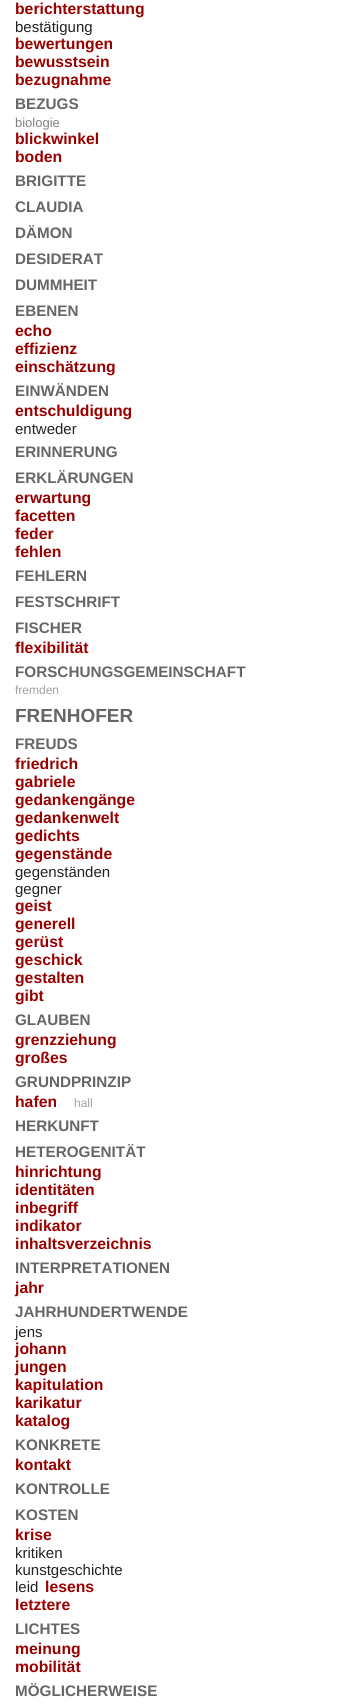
#include <cairo/cairo.h>
#include <math.h>
#include <stddef.h>


static void draw(cairo_t *cr) {
  cairo_set_source_rgb(cr, 1, 1, 1);
  cairo_paint(cr);
  cairo_select_font_face(cr, "Liberation Sans", CAIRO_FONT_SLANT_NORMAL, CAIRO_FONT_WEIGHT_BOLD);
  cairo_set_font_size(cr, 15.75);
  cairo_set_source_rgb(cr, 153 / 255.0, 0, 0);
  cairo_move_to(cr, 15, 14);
  cairo_show_text(cr, "berichterstattung");
  cairo_select_font_face(cr, "Liberation Sans", CAIRO_FONT_SLANT_NORMAL, CAIRO_FONT_WEIGHT_NORMAL);
  cairo_set_font_size(cr, 15);
  cairo_set_source_rgb(cr, 34 / 255.0, 34 / 255.0, 34 / 255.0);
  cairo_move_to(cr, 15, 32);
  cairo_show_text(cr, "bestätigung");
  cairo_select_font_face(cr, "Liberation Sans", CAIRO_FONT_SLANT_NORMAL, CAIRO_FONT_WEIGHT_BOLD);
  cairo_set_font_size(cr, 15.75);
  cairo_set_source_rgb(cr, 153 / 255.0, 0, 0);
  cairo_move_to(cr, 15, 49);
  cairo_show_text(cr, "bewertungen");
  cairo_move_to(cr, 15, 67);
  cairo_show_text(cr, "bewusstsein");
  cairo_move_to(cr, 15, 85);
  cairo_show_text(cr, "bezugnahme");
  cairo_set_font_size(cr, 15.25);
  cairo_set_source_rgb(cr, 102 / 255.0, 102 / 255.0, 102 / 255.0);
  cairo_move_to(cr, 15, 109);
  cairo_show_text(cr, "BEZUGS");
  cairo_select_font_face(cr, "Liberation Sans", CAIRO_FONT_SLANT_NORMAL, CAIRO_FONT_WEIGHT_NORMAL);
  cairo_set_font_size(cr, 13);
  cairo_set_source_rgb(cr, 128 / 255.0, 128 / 255.0, 128 / 255.0);
  cairo_move_to(cr, 15, 127);
  cairo_show_text(cr, "biologie");
  cairo_select_font_face(cr, "Liberation Sans", CAIRO_FONT_SLANT_NORMAL, CAIRO_FONT_WEIGHT_BOLD);
  cairo_set_font_size(cr, 15.75);
  cairo_set_source_rgb(cr, 153 / 255.0, 0, 0);
  cairo_move_to(cr, 15, 144);
  cairo_show_text(cr, "blickwinkel");
  cairo_move_to(cr, 15, 162);
  cairo_show_text(cr, "boden");
  cairo_set_font_size(cr, 15.25);
  cairo_set_source_rgb(cr, 102 / 255.0, 102 / 255.0, 102 / 255.0);
  cairo_move_to(cr, 15, 186);
  cairo_show_text(cr, "BRIGITTE");
  cairo_move_to(cr, 15, 212);
  cairo_show_text(cr, "CLAUDIA");
  cairo_move_to(cr, 15, 238);
  cairo_show_text(cr, "DÄMON");
  cairo_move_to(cr, 15, 264);
  cairo_show_text(cr, "DESIDERAT");
  cairo_move_to(cr, 15, 290);
  cairo_show_text(cr, "DUMMHEIT");
  cairo_move_to(cr, 15, 316);
  cairo_show_text(cr, "EBENEN");
  cairo_set_font_size(cr, 15.75);
  cairo_set_source_rgb(cr, 153 / 255.0, 0, 0);
  cairo_move_to(cr, 15, 336);
  cairo_show_text(cr, "echo");
  cairo_move_to(cr, 15, 354);
  cairo_show_text(cr, "effizienz");
  cairo_move_to(cr, 15, 372);
  cairo_show_text(cr, "einschätzung");
  cairo_set_font_size(cr, 15.25);
  cairo_set_source_rgb(cr, 102 / 255.0, 102 / 255.0, 102 / 255.0);
  cairo_move_to(cr, 15, 396);
  cairo_show_text(cr, "EINWÄNDEN");
  cairo_set_font_size(cr, 15.75);
  cairo_set_source_rgb(cr, 153 / 255.0, 0, 0);
  cairo_move_to(cr, 15, 416);
  cairo_show_text(cr, "entschuldigung");
  cairo_select_font_face(cr, "Liberation Sans", CAIRO_FONT_SLANT_NORMAL, CAIRO_FONT_WEIGHT_NORMAL);
  cairo_set_font_size(cr, 15);
  cairo_set_source_rgb(cr, 34 / 255.0, 34 / 255.0, 34 / 255.0);
  cairo_move_to(cr, 15, 434);
  cairo_show_text(cr, "entweder");
  cairo_select_font_face(cr, "Liberation Sans", CAIRO_FONT_SLANT_NORMAL, CAIRO_FONT_WEIGHT_BOLD);
  cairo_set_font_size(cr, 15.25);
  cairo_set_source_rgb(cr, 102 / 255.0, 102 / 255.0, 102 / 255.0);
  cairo_move_to(cr, 15, 457);
  cairo_show_text(cr, "ERINNERUNG");
  cairo_move_to(cr, 15, 483);
  cairo_show_text(cr, "ERKLÄRUNGEN");
  cairo_set_font_size(cr, 15.75);
  cairo_set_source_rgb(cr, 153 / 255.0, 0, 0);
  cairo_move_to(cr, 15, 503);
  cairo_show_text(cr, "erwartung");
  cairo_move_to(cr, 15, 521);
  cairo_show_text(cr, "facetten");
  cairo_move_to(cr, 15, 539);
  cairo_show_text(cr, "feder");
  cairo_move_to(cr, 15, 557);
  cairo_show_text(cr, "fehlen");
  cairo_set_font_size(cr, 15.25);
  cairo_set_source_rgb(cr, 102 / 255.0, 102 / 255.0, 102 / 255.0);
  cairo_move_to(cr, 15, 581);
  cairo_show_text(cr, "FEHLERN");
  cairo_move_to(cr, 15, 607);
  cairo_show_text(cr, "FESTSCHRIFT");
  cairo_move_to(cr, 15, 633);
  cairo_show_text(cr, "FISCHER");
  cairo_set_font_size(cr, 15.75);
  cairo_set_source_rgb(cr, 153 / 255.0, 0, 0);
  cairo_move_to(cr, 15, 653);
  cairo_show_text(cr, "flexibilität");
  cairo_set_font_size(cr, 15.25);
  cairo_set_source_rgb(cr, 102 / 255.0, 102 / 255.0, 102 / 255.0);
  cairo_move_to(cr, 15, 677);
  cairo_show_text(cr, "FORSCHUNGSGEMEINSCHAFT");
  cairo_select_font_face(cr, "Liberation Sans", CAIRO_FONT_SLANT_NORMAL, CAIRO_FONT_WEIGHT_NORMAL);
  cairo_set_font_size(cr, 12);
  cairo_set_source_rgb(cr, 160 / 255.0, 160 / 255.0, 160 / 255.0);
  cairo_move_to(cr, 15, 694);
  cairo_show_text(cr, "fremden");
  cairo_select_font_face(cr, "Liberation Sans", CAIRO_FONT_SLANT_NORMAL, CAIRO_FONT_WEIGHT_BOLD);
  cairo_set_font_size(cr, 19);
  cairo_set_source_rgb(cr, 102 / 255.0, 102 / 255.0, 102 / 255.0);
  cairo_move_to(cr, 15, 722);
  cairo_show_text(cr, "FRENHOFER");
  cairo_set_font_size(cr, 15.25);
  cairo_move_to(cr, 15, 749);
  cairo_show_text(cr, "FREUDS");
  cairo_set_font_size(cr, 15.75);
  cairo_set_source_rgb(cr, 153 / 255.0, 0, 0);
  cairo_move_to(cr, 15, 769);
  cairo_show_text(cr, "friedrich");
  cairo_move_to(cr, 15, 787);
  cairo_show_text(cr, "gabriele");
  cairo_move_to(cr, 15, 805);
  cairo_show_text(cr, "gedankengänge");
  cairo_move_to(cr, 15, 823);
  cairo_show_text(cr, "gedankenwelt");
  cairo_move_to(cr, 15, 841);
  cairo_show_text(cr, "gedichts");
  cairo_move_to(cr, 15, 859);
  cairo_show_text(cr, "gegenstände");
  cairo_select_font_face(cr, "Liberation Sans", CAIRO_FONT_SLANT_NORMAL, CAIRO_FONT_WEIGHT_NORMAL);
  cairo_set_font_size(cr, 15);
  cairo_set_source_rgb(cr, 34 / 255.0, 34 / 255.0, 34 / 255.0);
  cairo_move_to(cr, 15, 877);
  cairo_show_text(cr, "gegenständen");
  cairo_move_to(cr, 15, 894);
  cairo_show_text(cr, "gegner");
  cairo_select_font_face(cr, "Liberation Sans", CAIRO_FONT_SLANT_NORMAL, CAIRO_FONT_WEIGHT_BOLD);
  cairo_set_font_size(cr, 15.75);
  cairo_set_source_rgb(cr, 153 / 255.0, 0, 0);
  cairo_move_to(cr, 15, 911);
  cairo_show_text(cr, "geist");
  cairo_move_to(cr, 15, 929);
  cairo_show_text(cr, "generell");
  cairo_move_to(cr, 15, 947);
  cairo_show_text(cr, "gerüst");
  cairo_move_to(cr, 15, 965);
  cairo_show_text(cr, "geschick");
  cairo_move_to(cr, 15, 983);
  cairo_show_text(cr, "gestalten");
  cairo_move_to(cr, 15, 1001);
  cairo_show_text(cr, "gibt");
  cairo_set_font_size(cr, 15.25);
  cairo_set_source_rgb(cr, 102 / 255.0, 102 / 255.0, 102 / 255.0);
  cairo_move_to(cr, 15, 1025);
  cairo_show_text(cr, "GLAUBEN");
  cairo_set_font_size(cr, 15.75);
  cairo_set_source_rgb(cr, 153 / 255.0, 0, 0);
  cairo_move_to(cr, 15, 1045);
  cairo_show_text(cr, "grenzziehung");
  cairo_move_to(cr, 15, 1063);
  cairo_show_text(cr, "großes");
  cairo_set_font_size(cr, 15.25);
  cairo_set_source_rgb(cr, 102 / 255.0, 102 / 255.0, 102 / 255.0);
  cairo_move_to(cr, 15, 1087);
  cairo_show_text(cr, "GRUNDPRINZIP");
  cairo_set_font_size(cr, 15.75);
  cairo_set_source_rgb(cr, 153 / 255.0, 0, 0);
  cairo_move_to(cr, 15, 1107);
  cairo_show_text(cr, "hafen");
  cairo_select_font_face(cr, "Liberation Sans", CAIRO_FONT_SLANT_NORMAL, CAIRO_FONT_WEIGHT_NORMAL);
  cairo_set_font_size(cr, 12);
  cairo_set_source_rgb(cr, 160 / 255.0, 160 / 255.0, 160 / 255.0);
  cairo_move_to(cr, 74, 1107);
  cairo_show_text(cr, "hall");
  cairo_select_font_face(cr, "Liberation Sans", CAIRO_FONT_SLANT_NORMAL, CAIRO_FONT_WEIGHT_BOLD);
  cairo_set_font_size(cr, 15.25);
  cairo_set_source_rgb(cr, 102 / 255.0, 102 / 255.0, 102 / 255.0);
  cairo_move_to(cr, 15, 1131);
  cairo_show_text(cr, "HERKUNFT");
  cairo_move_to(cr, 15, 1157);
  cairo_show_text(cr, "HETEROGENITÄT");
  cairo_set_font_size(cr, 15.75);
  cairo_set_source_rgb(cr, 153 / 255.0, 0, 0);
  cairo_move_to(cr, 15, 1177);
  cairo_show_text(cr, "hinrichtung");
  cairo_move_to(cr, 15, 1195);
  cairo_show_text(cr, "identitäten");
  cairo_move_to(cr, 15, 1213);
  cairo_show_text(cr, "inbegriff");
  cairo_move_to(cr, 15, 1231);
  cairo_show_text(cr, "indikator");
  cairo_move_to(cr, 15, 1249);
  cairo_show_text(cr, "inhaltsverzeichnis");
  cairo_set_font_size(cr, 15.25);
  cairo_set_source_rgb(cr, 102 / 255.0, 102 / 255.0, 102 / 255.0);
  cairo_move_to(cr, 15, 1273);
  cairo_show_text(cr, "INTERPRETATIONEN");
  cairo_set_font_size(cr, 15.75);
  cairo_set_source_rgb(cr, 153 / 255.0, 0, 0);
  cairo_move_to(cr, 15, 1293);
  cairo_show_text(cr, "jahr");
  cairo_set_font_size(cr, 15.25);
  cairo_set_source_rgb(cr, 102 / 255.0, 102 / 255.0, 102 / 255.0);
  cairo_move_to(cr, 15, 1317);
  cairo_show_text(cr, "JAHRHUNDERTWENDE");
  cairo_select_font_face(cr, "Liberation Sans", CAIRO_FONT_SLANT_NORMAL, CAIRO_FONT_WEIGHT_NORMAL);
  cairo_set_font_size(cr, 15);
  cairo_set_source_rgb(cr, 34 / 255.0, 34 / 255.0, 34 / 255.0);
  cairo_move_to(cr, 15, 1337);
  cairo_show_text(cr, "jens");
  cairo_select_font_face(cr, "Liberation Sans", CAIRO_FONT_SLANT_NORMAL, CAIRO_FONT_WEIGHT_BOLD);
  cairo_set_font_size(cr, 15.75);
  cairo_set_source_rgb(cr, 153 / 255.0, 0, 0);
  cairo_move_to(cr, 15, 1354);
  cairo_show_text(cr, "johann");
  cairo_move_to(cr, 15, 1372);
  cairo_show_text(cr, "jungen");
  cairo_move_to(cr, 15, 1390);
  cairo_show_text(cr, "kapitulation");
  cairo_move_to(cr, 15, 1408);
  cairo_show_text(cr, "karikatur");
  cairo_move_to(cr, 15, 1426);
  cairo_show_text(cr, "katalog");
  cairo_set_font_size(cr, 15.25);
  cairo_set_source_rgb(cr, 102 / 255.0, 102 / 255.0, 102 / 255.0);
  cairo_move_to(cr, 15, 1450);
  cairo_show_text(cr, "KONKRETE");
  cairo_set_font_size(cr, 15.75);
  cairo_set_source_rgb(cr, 153 / 255.0, 0, 0);
  cairo_move_to(cr, 15, 1470);
  cairo_show_text(cr, "kontakt");
  cairo_set_font_size(cr, 15.25);
  cairo_set_source_rgb(cr, 102 / 255.0, 102 / 255.0, 102 / 255.0);
  cairo_move_to(cr, 15, 1494);
  cairo_show_text(cr, "KONTROLLE");
  cairo_move_to(cr, 15, 1520);
  cairo_show_text(cr, "KOSTEN");
  cairo_set_font_size(cr, 15.75);
  cairo_set_source_rgb(cr, 153 / 255.0, 0, 0);
  cairo_move_to(cr, 15, 1540);
  cairo_show_text(cr, "krise");
  cairo_select_font_face(cr, "Liberation Sans", CAIRO_FONT_SLANT_NORMAL, CAIRO_FONT_WEIGHT_NORMAL);
  cairo_set_font_size(cr, 15);
  cairo_set_source_rgb(cr, 34 / 255.0, 34 / 255.0, 34 / 255.0);
  cairo_move_to(cr, 15, 1558);
  cairo_show_text(cr, "kritiken");
  cairo_move_to(cr, 15, 1575);
  cairo_show_text(cr, "kunstgeschichte");
  cairo_move_to(cr, 15, 1592);
  cairo_show_text(cr, "leid");
  cairo_select_font_face(cr, "Liberation Sans", CAIRO_FONT_SLANT_NORMAL, CAIRO_FONT_WEIGHT_BOLD);
  cairo_set_font_size(cr, 15.75);
  cairo_set_source_rgb(cr, 153 / 255.0, 0, 0);
  cairo_move_to(cr, 45, 1592);
  cairo_show_text(cr, "lesens");
  cairo_move_to(cr, 15, 1610);
  cairo_show_text(cr, "letztere");
  cairo_set_font_size(cr, 15.25);
  cairo_set_source_rgb(cr, 102 / 255.0, 102 / 255.0, 102 / 255.0);
  cairo_move_to(cr, 15, 1634);
  cairo_show_text(cr, "LICHTES");
  cairo_set_font_size(cr, 15.75);
  cairo_set_source_rgb(cr, 153 / 255.0, 0, 0);
  cairo_move_to(cr, 15, 1654);
  cairo_show_text(cr, "meinung");
  cairo_move_to(cr, 15, 1672);
  cairo_show_text(cr, "mobilität");
  cairo_set_font_size(cr, 15.25);
  cairo_set_source_rgb(cr, 102 / 255.0, 102 / 255.0, 102 / 255.0);
  cairo_move_to(cr, 15, 1696);
  cairo_show_text(cr, "MÖGLICHERWEISE");
}

int main(void) {
  cairo_surface_t *surface = cairo_image_surface_create(CAIRO_FORMAT_RGB24, 349, 1707);
  cairo_t *cr = cairo_create(surface);
  cairo_font_options_t *options = cairo_font_options_create();
  cairo_font_options_set_hint_metrics(options, CAIRO_HINT_METRICS_OFF);
  cairo_font_options_set_hint_style(options, CAIRO_HINT_STYLE_NONE);
  cairo_set_font_options(cr, options);
  cairo_set_miter_limit(cr, 4);
  draw(cr);
  cairo_surface_write_to_png(surface, "out.png");
  cairo_font_options_destroy(options);
  cairo_destroy(cr);
  cairo_surface_destroy(surface);
  return 0;
}
